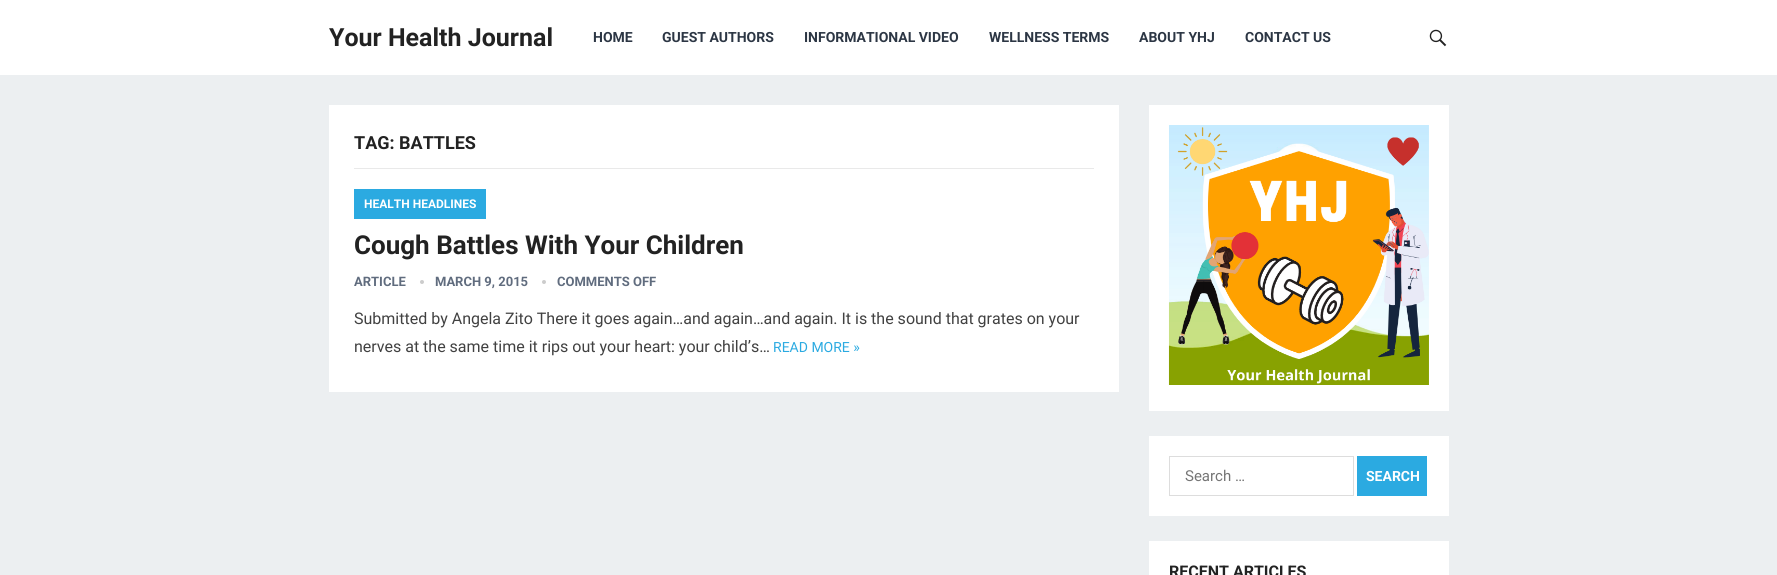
#include <cairo/cairo.h>
#include <math.h>
#include <stddef.h>


static void draw_image(cairo_t *cr, const char *path, double x, double y, double w, double h) {
  cairo_surface_t *image = cairo_image_surface_create_from_png(path);
  cairo_save(cr);
  cairo_set_source_surface(cr, image, x, y);
  cairo_rectangle(cr, x, y, w, h);
  cairo_fill(cr);
  cairo_restore(cr);
  cairo_surface_destroy(image);
}

static void draw(cairo_t *cr) {
  cairo_set_source_rgb(cr, 236 / 255.0, 239 / 255.0, 241 / 255.0);
  cairo_paint(cr);
  cairo_set_source_rgb(cr, 1, 1, 1);
  cairo_rectangle(cr, 0, 0, 1777, 75);
  cairo_fill(cr);
  draw_image(cr, "images/1.png", 1429, 29, 18, 18);
  cairo_rectangle(cr, 329, 105, 790, 287);
  cairo_fill(cr);
  cairo_set_source_rgb(cr, 233 / 255.0, 233 / 255.0, 233 / 255.0);
  cairo_rectangle(cr, 354, 168, 740, 1);
  cairo_fill(cr);
  cairo_set_source_rgb(cr, 43 / 255.0, 170 / 255.0, 225 / 255.0);
  cairo_rectangle(cr, 354, 189, 132, 30);
  cairo_fill(cr);
  cairo_set_source_rgb(cr, 204 / 255.0, 204 / 255.0, 204 / 255.0);
  cairo_arc(cr, 422, 282, 2, 0, 2 * M_PI);
  cairo_fill(cr);
  cairo_arc(cr, 544, 282, 2, 0, 2 * M_PI);
  cairo_fill(cr);
  cairo_set_source_rgb(cr, 1, 1, 1);
  cairo_rectangle(cr, 1149, 105, 300, 306);
  cairo_fill(cr);
  draw_image(cr, "images/2.png", 1168, 125, 261, 260);
  cairo_rectangle(cr, 1149, 436, 300, 80);
  cairo_fill(cr);
  cairo_rectangle(cr, 1169.5, 456.5, 184, 39);
  cairo_set_source_rgb(cr, 221 / 255.0, 221 / 255.0, 221 / 255.0);
  cairo_set_line_width(cr, 1);
  cairo_stroke(cr);
  cairo_set_source_rgb(cr, 43 / 255.0, 170 / 255.0, 225 / 255.0);
  cairo_rectangle(cr, 1357, 456, 70, 40);
  cairo_fill(cr);
  cairo_set_source_rgb(cr, 1, 1, 1);
  cairo_rectangle(cr, 1149, 541, 300, 34);
  cairo_fill(cr);
  cairo_select_font_face(cr, "Roboto", CAIRO_FONT_SLANT_NORMAL, CAIRO_FONT_WEIGHT_BOLD);
  cairo_set_font_size(cr, 25);
  cairo_set_source_rgb(cr, 34 / 255.0, 34 / 255.0, 34 / 255.0);
  cairo_move_to(cr, 329, 46);
  cairo_show_text(cr, "Your Health Journal");
  cairo_set_font_size(cr, 14);
  cairo_set_source_rgb(cr, 44 / 255.0, 54 / 255.0, 68 / 255.0);
  cairo_move_to(cr, 593, 42);
  cairo_show_text(cr, "HOME");
  cairo_move_to(cr, 662, 42);
  cairo_show_text(cr, "GUEST AUTHORS");
  cairo_move_to(cr, 804, 42);
  cairo_show_text(cr, "INFORMATIONAL VIDEO");
  cairo_move_to(cr, 989, 42);
  cairo_show_text(cr, "WELLNESS TERMS");
  cairo_move_to(cr, 1139, 42);
  cairo_show_text(cr, "ABOUT YHJ");
  cairo_move_to(cr, 1245, 42);
  cairo_show_text(cr, "CONTACT US");
  cairo_set_font_size(cr, 18);
  cairo_set_source_rgb(cr, 34 / 255.0, 34 / 255.0, 34 / 255.0);
  cairo_move_to(cr, 354, 149);
  cairo_show_text(cr, "TAG: BATTLES");
  cairo_set_font_size(cr, 12);
  cairo_set_source_rgb(cr, 1, 1, 1);
  cairo_move_to(cr, 364, 208);
  cairo_show_text(cr, "HEALTH HEADLINES");
  cairo_set_font_size(cr, 26);
  cairo_set_source_rgb(cr, 34 / 255.0, 34 / 255.0, 34 / 255.0);
  cairo_move_to(cr, 354, 254);
  cairo_show_text(cr, "Cough Battles With Your Children");
  cairo_set_font_size(cr, 13);
  cairo_set_source_rgb(cr, 96 / 255.0, 108 / 255.0, 126 / 255.0);
  cairo_move_to(cr, 354, 286);
  cairo_show_text(cr, "ARTICLE");
  cairo_move_to(cr, 435, 286);
  cairo_show_text(cr, "MARCH 9, 2015");
  cairo_move_to(cr, 557, 286);
  cairo_show_text(cr, "COMMENTS OFF");
  cairo_select_font_face(cr, "Roboto", CAIRO_FONT_SLANT_NORMAL, CAIRO_FONT_WEIGHT_NORMAL);
  cairo_set_font_size(cr, 16);
  cairo_set_source_rgb(cr, 65 / 255.0, 65 / 255.0, 65 / 255.0);
  cairo_move_to(cr, 354, 324);
  cairo_show_text(cr, "Submitted by Angela Zito There it goes again…and again…and again. It is the sound that grates on your");
  cairo_move_to(cr, 354, 352);
  cairo_show_text(cr, "nerves at the same time it rips out your heart: your child’s…");
  cairo_set_font_size(cr, 14);
  cairo_set_source_rgb(cr, 43 / 255.0, 170 / 255.0, 225 / 255.0);
  cairo_move_to(cr, 773, 352);
  cairo_show_text(cr, "READ MORE »");
  cairo_set_font_size(cr, 15);
  cairo_set_source_rgb(cr, 117 / 255.0, 117 / 255.0, 117 / 255.0);
  cairo_move_to(cr, 1185, 481);
  cairo_show_text(cr, "Search …");
  cairo_select_font_face(cr, "Roboto", CAIRO_FONT_SLANT_NORMAL, CAIRO_FONT_WEIGHT_BOLD);
  cairo_set_font_size(cr, 14);
  cairo_set_source_rgb(cr, 1, 1, 1);
  cairo_move_to(cr, 1366, 481);
  cairo_show_text(cr, "SEARCH");
  cairo_set_font_size(cr, 16);
  cairo_set_source_rgb(cr, 34 / 255.0, 34 / 255.0, 34 / 255.0);
  cairo_move_to(cr, 1169, 577);
  cairo_show_text(cr, "RECENT ARTICLES");
}

int main(void) {
  cairo_surface_t *surface = cairo_image_surface_create(CAIRO_FORMAT_RGB24, 1777, 575);
  cairo_t *cr = cairo_create(surface);
  cairo_font_options_t *options = cairo_font_options_create();
  cairo_font_options_set_hint_metrics(options, CAIRO_HINT_METRICS_OFF);
  cairo_font_options_set_hint_style(options, CAIRO_HINT_STYLE_NONE);
  cairo_set_font_options(cr, options);
  cairo_set_miter_limit(cr, 4);
  draw(cr);
  cairo_surface_write_to_png(surface, "out.png");
  cairo_font_options_destroy(options);
  cairo_destroy(cr);
  cairo_surface_destroy(surface);
  return 0;
}
